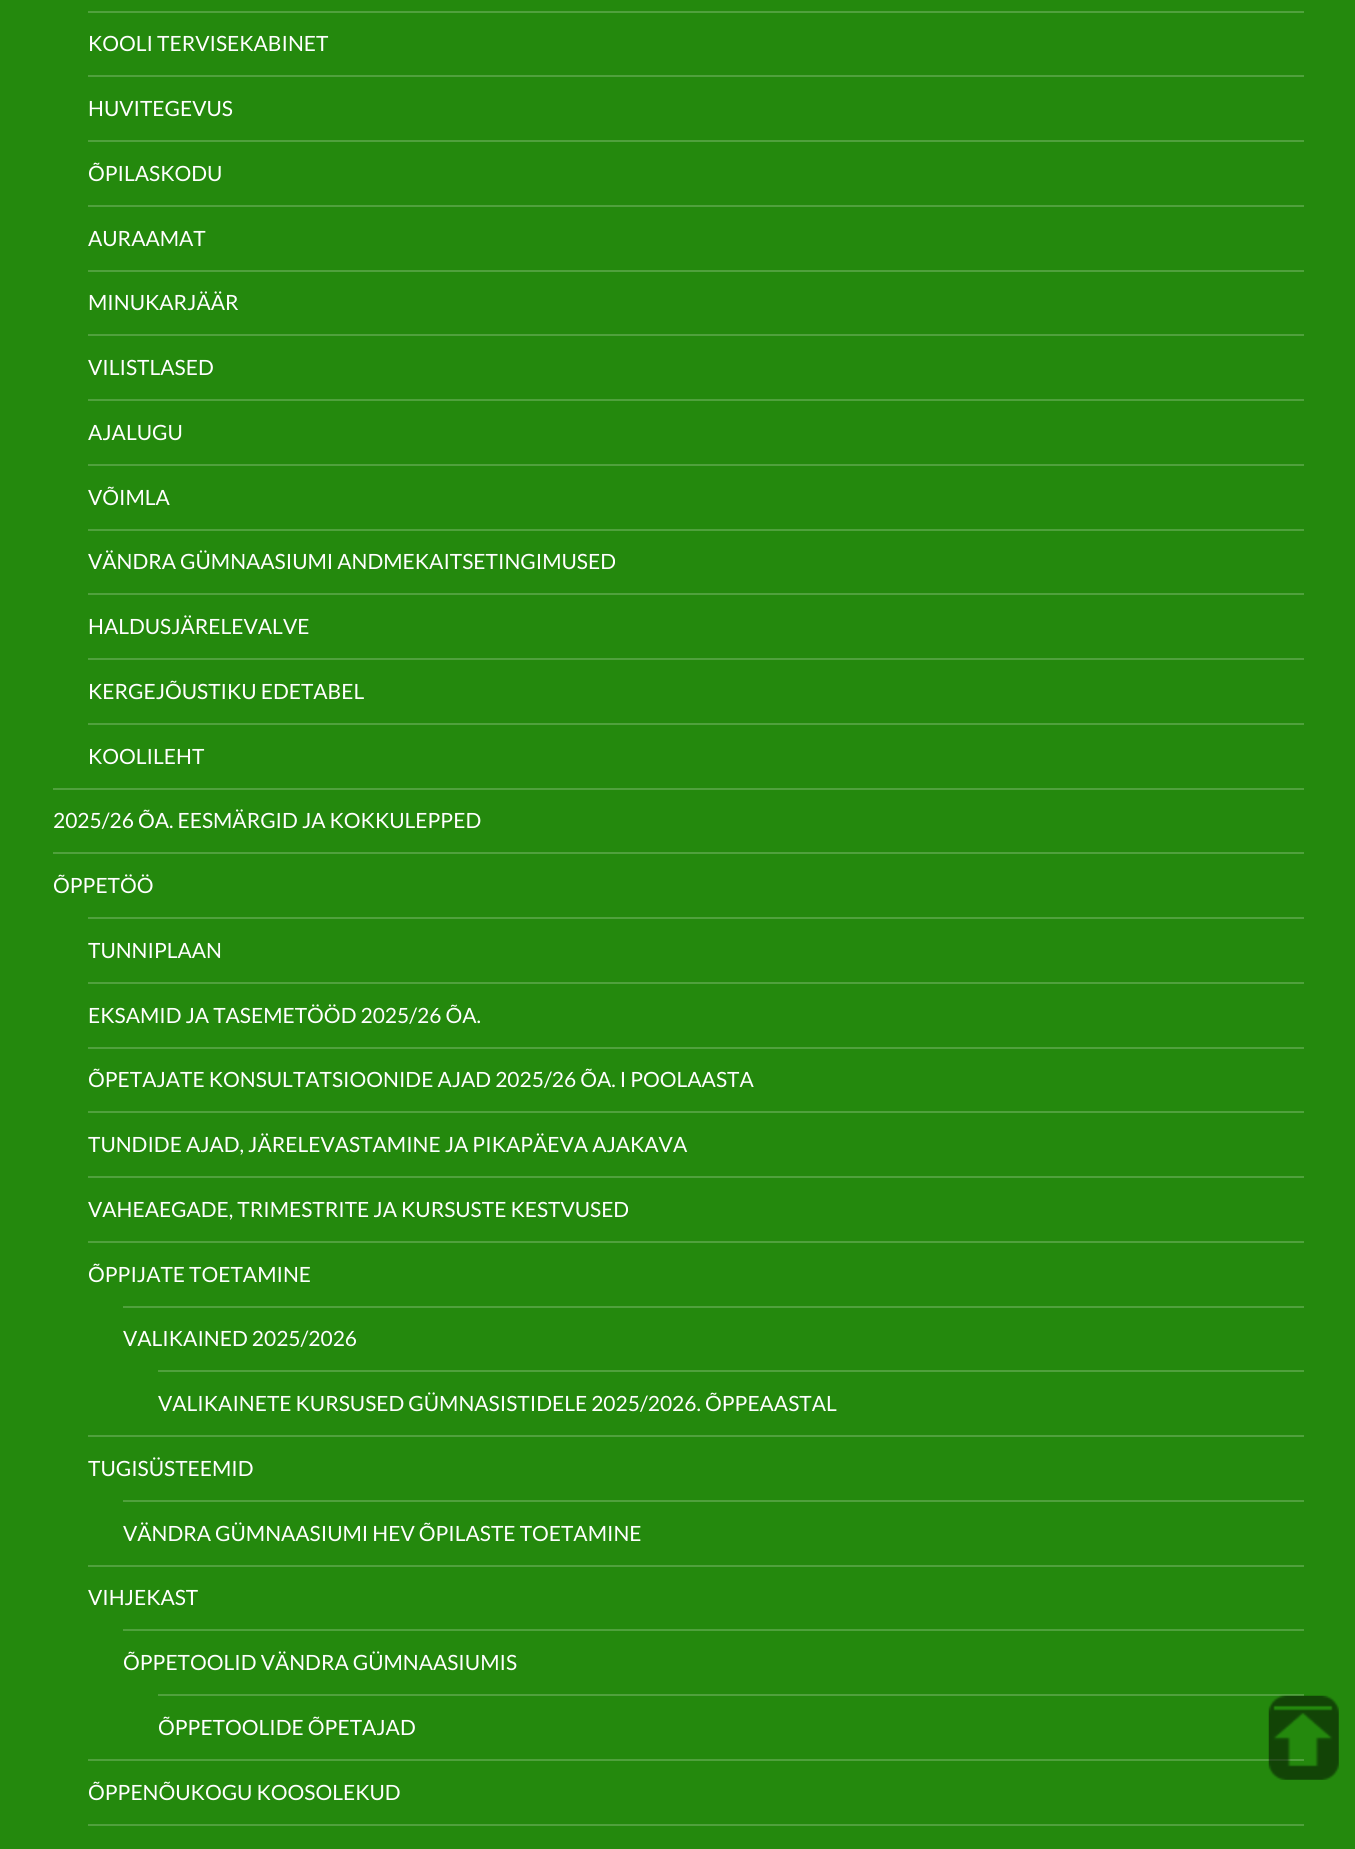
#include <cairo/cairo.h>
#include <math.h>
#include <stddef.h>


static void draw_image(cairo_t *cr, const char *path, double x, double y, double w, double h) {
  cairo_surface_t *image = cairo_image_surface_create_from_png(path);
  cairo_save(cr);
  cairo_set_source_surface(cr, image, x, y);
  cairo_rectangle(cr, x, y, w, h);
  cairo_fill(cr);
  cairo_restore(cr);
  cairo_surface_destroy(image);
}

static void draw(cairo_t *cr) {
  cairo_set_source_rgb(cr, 36 / 255.0, 137 / 255.0, 13 / 255.0);
  cairo_paint(cr);
  cairo_set_source_rgb(cr, 80 / 255.0, 161 / 255.0, 61 / 255.0);
  cairo_rectangle(cr, 88, 11, 1216, 2);
  cairo_fill(cr);
  cairo_rectangle(cr, 88, 75, 1216, 2);
  cairo_fill(cr);
  cairo_rectangle(cr, 88, 140, 1216, 2);
  cairo_fill(cr);
  cairo_rectangle(cr, 88, 205, 1216, 2);
  cairo_fill(cr);
  cairo_rectangle(cr, 88, 270, 1216, 2);
  cairo_fill(cr);
  cairo_rectangle(cr, 88, 334, 1216, 2);
  cairo_fill(cr);
  cairo_rectangle(cr, 88, 399, 1216, 2);
  cairo_fill(cr);
  cairo_rectangle(cr, 88, 464, 1216, 2);
  cairo_fill(cr);
  cairo_rectangle(cr, 88, 529, 1216, 2);
  cairo_fill(cr);
  cairo_rectangle(cr, 88, 593, 1216, 2);
  cairo_fill(cr);
  cairo_rectangle(cr, 88, 658, 1216, 2);
  cairo_fill(cr);
  cairo_rectangle(cr, 88, 723, 1216, 2);
  cairo_fill(cr);
  cairo_rectangle(cr, 53, 788, 1251, 2);
  cairo_fill(cr);
  cairo_rectangle(cr, 53, 852, 1251, 2);
  cairo_fill(cr);
  cairo_rectangle(cr, 88, 917, 1216, 2);
  cairo_fill(cr);
  cairo_rectangle(cr, 88, 982, 1216, 2);
  cairo_fill(cr);
  cairo_rectangle(cr, 88, 1047, 1216, 2);
  cairo_fill(cr);
  cairo_rectangle(cr, 88, 1111, 1216, 2);
  cairo_fill(cr);
  cairo_rectangle(cr, 88, 1176, 1216, 2);
  cairo_fill(cr);
  cairo_rectangle(cr, 88, 1241, 1216, 2);
  cairo_fill(cr);
  cairo_rectangle(cr, 123, 1306, 1181, 2);
  cairo_fill(cr);
  cairo_rectangle(cr, 158, 1370, 1146, 2);
  cairo_fill(cr);
  cairo_rectangle(cr, 88, 1435, 1216, 2);
  cairo_fill(cr);
  cairo_rectangle(cr, 123, 1500, 1181, 2);
  cairo_fill(cr);
  cairo_rectangle(cr, 88, 1565, 1216, 2);
  cairo_fill(cr);
  cairo_rectangle(cr, 123, 1629, 1181, 2);
  cairo_fill(cr);
  cairo_rectangle(cr, 158, 1694, 1146, 2);
  cairo_fill(cr);
  cairo_rectangle(cr, 88, 1759, 1216, 2);
  cairo_fill(cr);
  cairo_rectangle(cr, 88, 1824, 1216, 2);
  cairo_fill(cr);
  draw_image(cr, "images/1.png", 1268, 1695, 71, 85);
  cairo_select_font_face(cr, "Lato", CAIRO_FONT_SLANT_NORMAL, CAIRO_FONT_WEIGHT_NORMAL);
  cairo_set_font_size(cr, 21);
  cairo_set_source_rgb(cr, 1, 1, 1);
  cairo_move_to(cr, 88, 51);
  cairo_show_text(cr, "KOOLI TERVISEKABINET");
  cairo_move_to(cr, 88, 116);
  cairo_show_text(cr, "HUVITEGEVUS");
  cairo_move_to(cr, 88, 181);
  cairo_show_text(cr, "ÕPILASKODU");
  cairo_move_to(cr, 88, 246);
  cairo_show_text(cr, "AURAAMAT");
  cairo_move_to(cr, 88, 310);
  cairo_show_text(cr, "MINUKARJÄÄR");
  cairo_move_to(cr, 88, 375);
  cairo_show_text(cr, "VILISTLASED");
  cairo_move_to(cr, 88, 440);
  cairo_show_text(cr, "AJALUGU");
  cairo_move_to(cr, 88, 505);
  cairo_show_text(cr, "VÕIMLA");
  cairo_move_to(cr, 88, 569);
  cairo_show_text(cr, "VÄNDRA GÜMNAASIUMI ANDMEKAITSETINGIMUSED");
  cairo_move_to(cr, 88, 634);
  cairo_show_text(cr, "HALDUSJÄRELEVALVE");
  cairo_move_to(cr, 88, 699);
  cairo_show_text(cr, "KERGEJÕUSTIKU EDETABEL");
  cairo_move_to(cr, 88, 764);
  cairo_show_text(cr, "KOOLILEHT");
  cairo_move_to(cr, 53, 828);
  cairo_show_text(cr, "2025/26 ÕA. EESMÄRGID JA KOKKULEPPED");
  cairo_move_to(cr, 53, 893);
  cairo_show_text(cr, "ÕPPETÖÖ");
  cairo_move_to(cr, 88, 958);
  cairo_show_text(cr, "TUNNIPLAAN");
  cairo_move_to(cr, 88, 1023);
  cairo_show_text(cr, "EKSAMID JA TASEMETÖÖD 2025/26 ÕA.");
  cairo_move_to(cr, 88, 1087);
  cairo_show_text(cr, "ÕPETAJATE KONSULTATSIOONIDE AJAD 2025/26 ÕA. I POOLAASTA");
  cairo_move_to(cr, 88, 1152);
  cairo_show_text(cr, "TUNDIDE AJAD, JÄRELEVASTAMINE JA PIKAPÄEVA AJAKAVA");
  cairo_move_to(cr, 88, 1217);
  cairo_show_text(cr, "VAHEAEGADE, TRIMESTRITE JA KURSUSTE KESTVUSED");
  cairo_move_to(cr, 88, 1282);
  cairo_show_text(cr, "ÕPPIJATE TOETAMINE");
  cairo_move_to(cr, 123, 1346);
  cairo_show_text(cr, "VALIKAINED 2025/2026");
  cairo_move_to(cr, 158, 1411);
  cairo_show_text(cr, "VALIKAINETE KURSUSED GÜMNASISTIDELE 2025/2026. ÕPPEAASTAL");
  cairo_move_to(cr, 88, 1476);
  cairo_show_text(cr, "TUGISÜSTEEMID");
  cairo_move_to(cr, 123, 1541);
  cairo_show_text(cr, "VÄNDRA GÜMNAASIUMI HEV ÕPILASTE TOETAMINE");
  cairo_move_to(cr, 88, 1605);
  cairo_show_text(cr, "VIHJEKAST");
  cairo_move_to(cr, 123, 1670);
  cairo_show_text(cr, "ÕPPETOOLID VÄNDRA GÜMNAASIUMIS");
  cairo_move_to(cr, 158, 1735);
  cairo_show_text(cr, "ÕPPETOOLIDE ÕPETAJAD");
  cairo_move_to(cr, 88, 1800);
  cairo_show_text(cr, "ÕPPENÕUKOGU KOOSOLEKUD");
}

int main(void) {
  cairo_surface_t *surface = cairo_image_surface_create(CAIRO_FORMAT_RGB24, 1355, 1849);
  cairo_t *cr = cairo_create(surface);
  cairo_font_options_t *options = cairo_font_options_create();
  cairo_font_options_set_hint_metrics(options, CAIRO_HINT_METRICS_OFF);
  cairo_font_options_set_hint_style(options, CAIRO_HINT_STYLE_NONE);
  cairo_set_font_options(cr, options);
  cairo_set_miter_limit(cr, 4);
  draw(cr);
  cairo_surface_write_to_png(surface, "out.png");
  cairo_font_options_destroy(options);
  cairo_destroy(cr);
  cairo_surface_destroy(surface);
  return 0;
}
